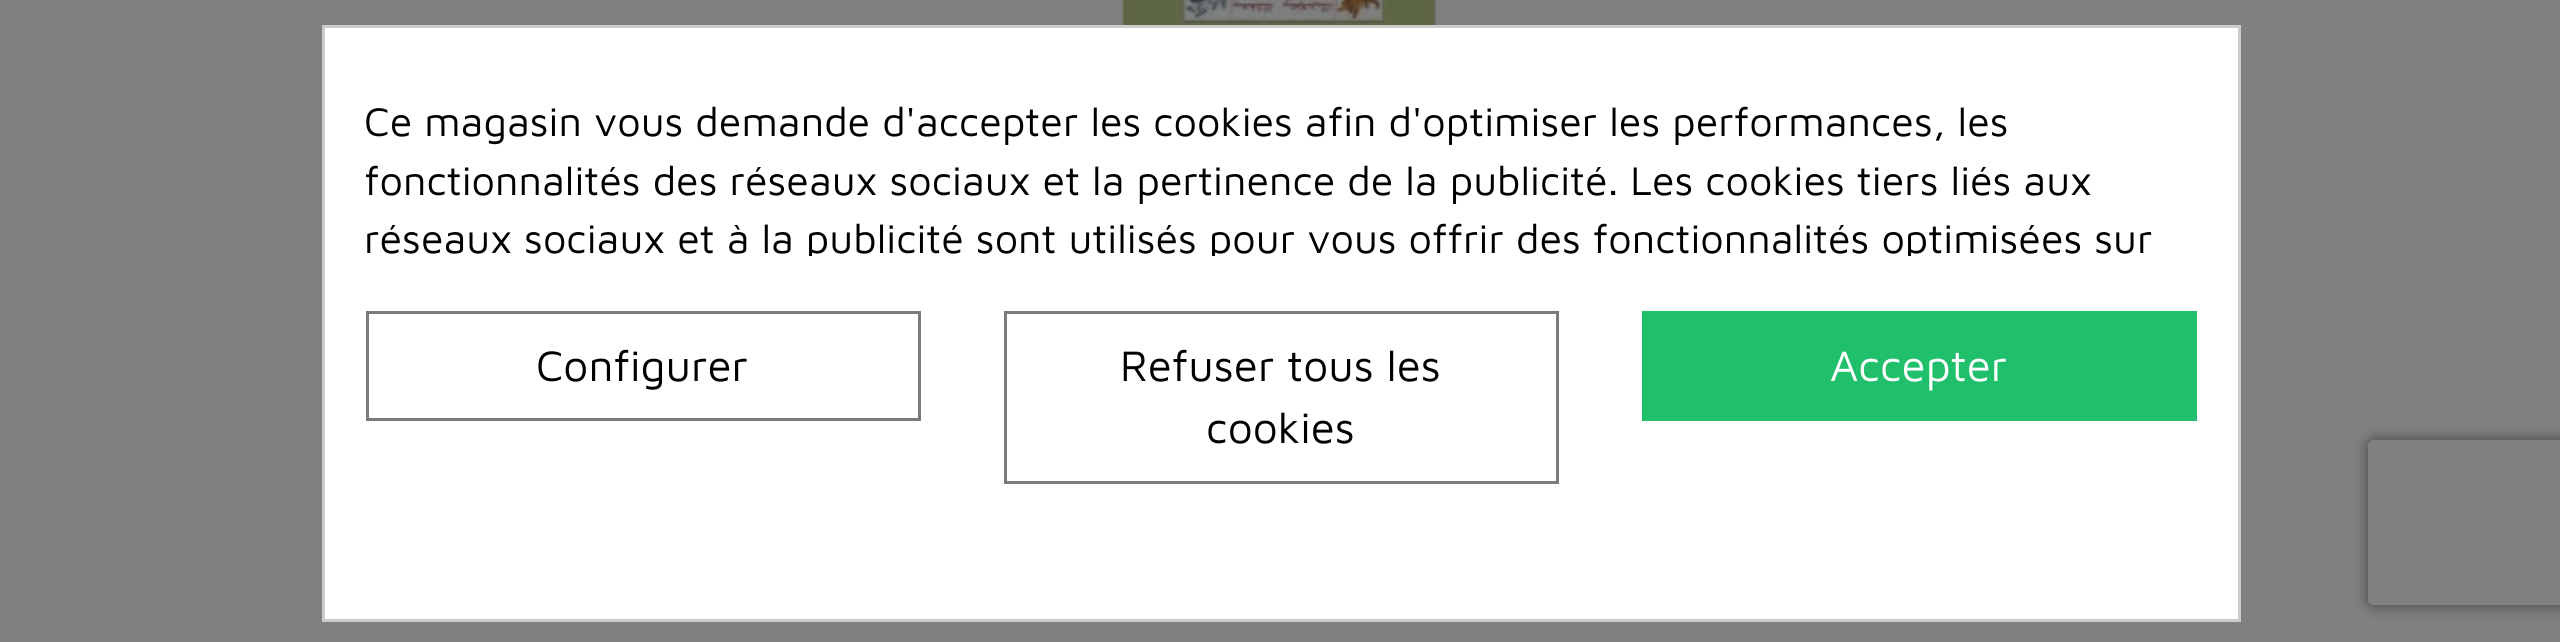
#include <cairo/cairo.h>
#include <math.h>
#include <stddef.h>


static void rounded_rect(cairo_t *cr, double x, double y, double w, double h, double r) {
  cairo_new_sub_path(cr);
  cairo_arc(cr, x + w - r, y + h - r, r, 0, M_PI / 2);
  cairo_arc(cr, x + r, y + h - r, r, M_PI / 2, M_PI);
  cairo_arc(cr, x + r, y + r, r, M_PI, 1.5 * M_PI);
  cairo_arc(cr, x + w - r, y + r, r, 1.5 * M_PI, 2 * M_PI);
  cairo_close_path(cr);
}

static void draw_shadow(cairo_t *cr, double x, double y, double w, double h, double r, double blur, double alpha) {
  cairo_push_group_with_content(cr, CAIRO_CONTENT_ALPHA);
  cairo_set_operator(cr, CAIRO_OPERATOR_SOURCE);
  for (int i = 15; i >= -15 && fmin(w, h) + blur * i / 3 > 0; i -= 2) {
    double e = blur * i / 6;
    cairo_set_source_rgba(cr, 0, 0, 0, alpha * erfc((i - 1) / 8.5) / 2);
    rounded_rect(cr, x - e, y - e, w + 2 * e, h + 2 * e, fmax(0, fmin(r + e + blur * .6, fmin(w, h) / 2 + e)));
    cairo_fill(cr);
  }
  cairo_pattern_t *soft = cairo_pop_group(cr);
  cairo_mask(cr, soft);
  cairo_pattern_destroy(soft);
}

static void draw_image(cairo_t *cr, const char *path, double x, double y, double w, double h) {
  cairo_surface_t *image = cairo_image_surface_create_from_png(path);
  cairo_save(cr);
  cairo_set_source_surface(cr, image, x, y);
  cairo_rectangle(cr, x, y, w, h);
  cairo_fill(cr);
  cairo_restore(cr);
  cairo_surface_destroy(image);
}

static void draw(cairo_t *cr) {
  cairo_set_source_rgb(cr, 128 / 255.0, 128 / 255.0, 128 / 255.0);
  cairo_paint(cr);
  draw_image(cr, "images/1.png", 1122, 0, 314, 25);
  cairo_set_source_rgb(cr, 1, 1, 1);
  cairo_rectangle(cr, 323.5, 26.5, 1916, 594);
  cairo_fill_preserve(cr);
  cairo_set_source_rgb(cr, 204 / 255.0, 204 / 255.0, 204 / 255.0);
  cairo_set_line_width(cr, 3);
  cairo_stroke(cr);
  cairo_rectangle(cr, 367.5, 312.5, 552, 107);
  cairo_set_source_rgb(cr, 122 / 255.0, 122 / 255.0, 122 / 255.0);
  cairo_stroke(cr);
  cairo_rectangle(cr, 1005.5, 312.5, 552, 170);
  cairo_stroke(cr);
  cairo_set_source_rgb(cr, 32 / 255.0, 191 / 255.0, 107 / 255.0);
  cairo_rectangle(cr, 1642, 311, 555, 110);
  cairo_fill(cr);
  cairo_save(cr);
  cairo_set_fill_rule(cr, CAIRO_FILL_RULE_EVEN_ODD);
  cairo_new_path(cr);
  cairo_move_to(cr, 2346, 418);
  cairo_line_to(cr, 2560, 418);
  cairo_line_to(cr, 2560, 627);
  cairo_line_to(cr, 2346, 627);
  cairo_close_path(cr);
  cairo_move_to(cr, 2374, 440);
  cairo_line_to(cr, 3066, 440);
  cairo_curve_to(cr, 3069.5, 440, 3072, 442.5, 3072, 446);
  cairo_line_to(cr, 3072, 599);
  cairo_curve_to(cr, 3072, 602.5, 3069.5, 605, 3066, 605);
  cairo_line_to(cr, 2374, 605);
  cairo_curve_to(cr, 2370.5, 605, 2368, 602.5, 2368, 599);
  cairo_line_to(cr, 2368, 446);
  cairo_curve_to(cr, 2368, 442.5, 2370.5, 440, 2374, 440);
  cairo_close_path(cr);
  cairo_clip(cr);
  cairo_set_source_rgb(cr, 64 / 255.0, 64 / 255.0, 64 / 255.0);
  draw_shadow(cr, 2368, 440, 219, 165, 6, 7, 1);
  cairo_restore(cr);
  cairo_select_font_face(cr, "Maven Pro", CAIRO_FONT_SLANT_NORMAL, CAIRO_FONT_WEIGHT_NORMAL);
  cairo_set_font_size(cr, 41.25);
  cairo_set_source_rgb(cr, 0, 0, 0);
  cairo_move_to(cr, 364, 136);
  cairo_show_text(cr, "Ce magasin vous demande d'accepter les cookies afin d'optimiser les performances, les");
  cairo_save(cr);
  cairo_rectangle(cr, 366, 94, 1831, 162);
  cairo_clip(cr);
  cairo_move_to(cr, 364, 195);
  cairo_show_text(cr, "fonctionnalités des réseaux sociaux et la pertinence de la publicité. Les cookies tiers liés aux");
  cairo_move_to(cr, 364, 253);
  cairo_show_text(cr, "réseaux sociaux et à la publicité sont utilisés pour vous offrir des fonctionnalités optimisées sur");
  cairo_restore(cr);
  cairo_set_font_size(cr, 44);
  cairo_move_to(cr, 536, 381);
  cairo_show_text(cr, "Configurer");
  cairo_move_to(cr, 1120, 381);
  cairo_show_text(cr, "Refuser tous les");
  cairo_move_to(cr, 1206, 443);
  cairo_show_text(cr, "cookies");
  cairo_set_source_rgb(cr, 1, 1, 1);
  cairo_move_to(cr, 1830, 381);
  cairo_show_text(cr, "Accepter");
}

int main(void) {
  cairo_surface_t *surface = cairo_image_surface_create(CAIRO_FORMAT_RGB24, 2560, 642);
  cairo_t *cr = cairo_create(surface);
  cairo_font_options_t *options = cairo_font_options_create();
  cairo_font_options_set_hint_metrics(options, CAIRO_HINT_METRICS_OFF);
  cairo_font_options_set_hint_style(options, CAIRO_HINT_STYLE_NONE);
  cairo_set_font_options(cr, options);
  cairo_set_miter_limit(cr, 4);
  draw(cr);
  cairo_surface_write_to_png(surface, "out.png");
  cairo_font_options_destroy(options);
  cairo_destroy(cr);
  cairo_surface_destroy(surface);
  return 0;
}
